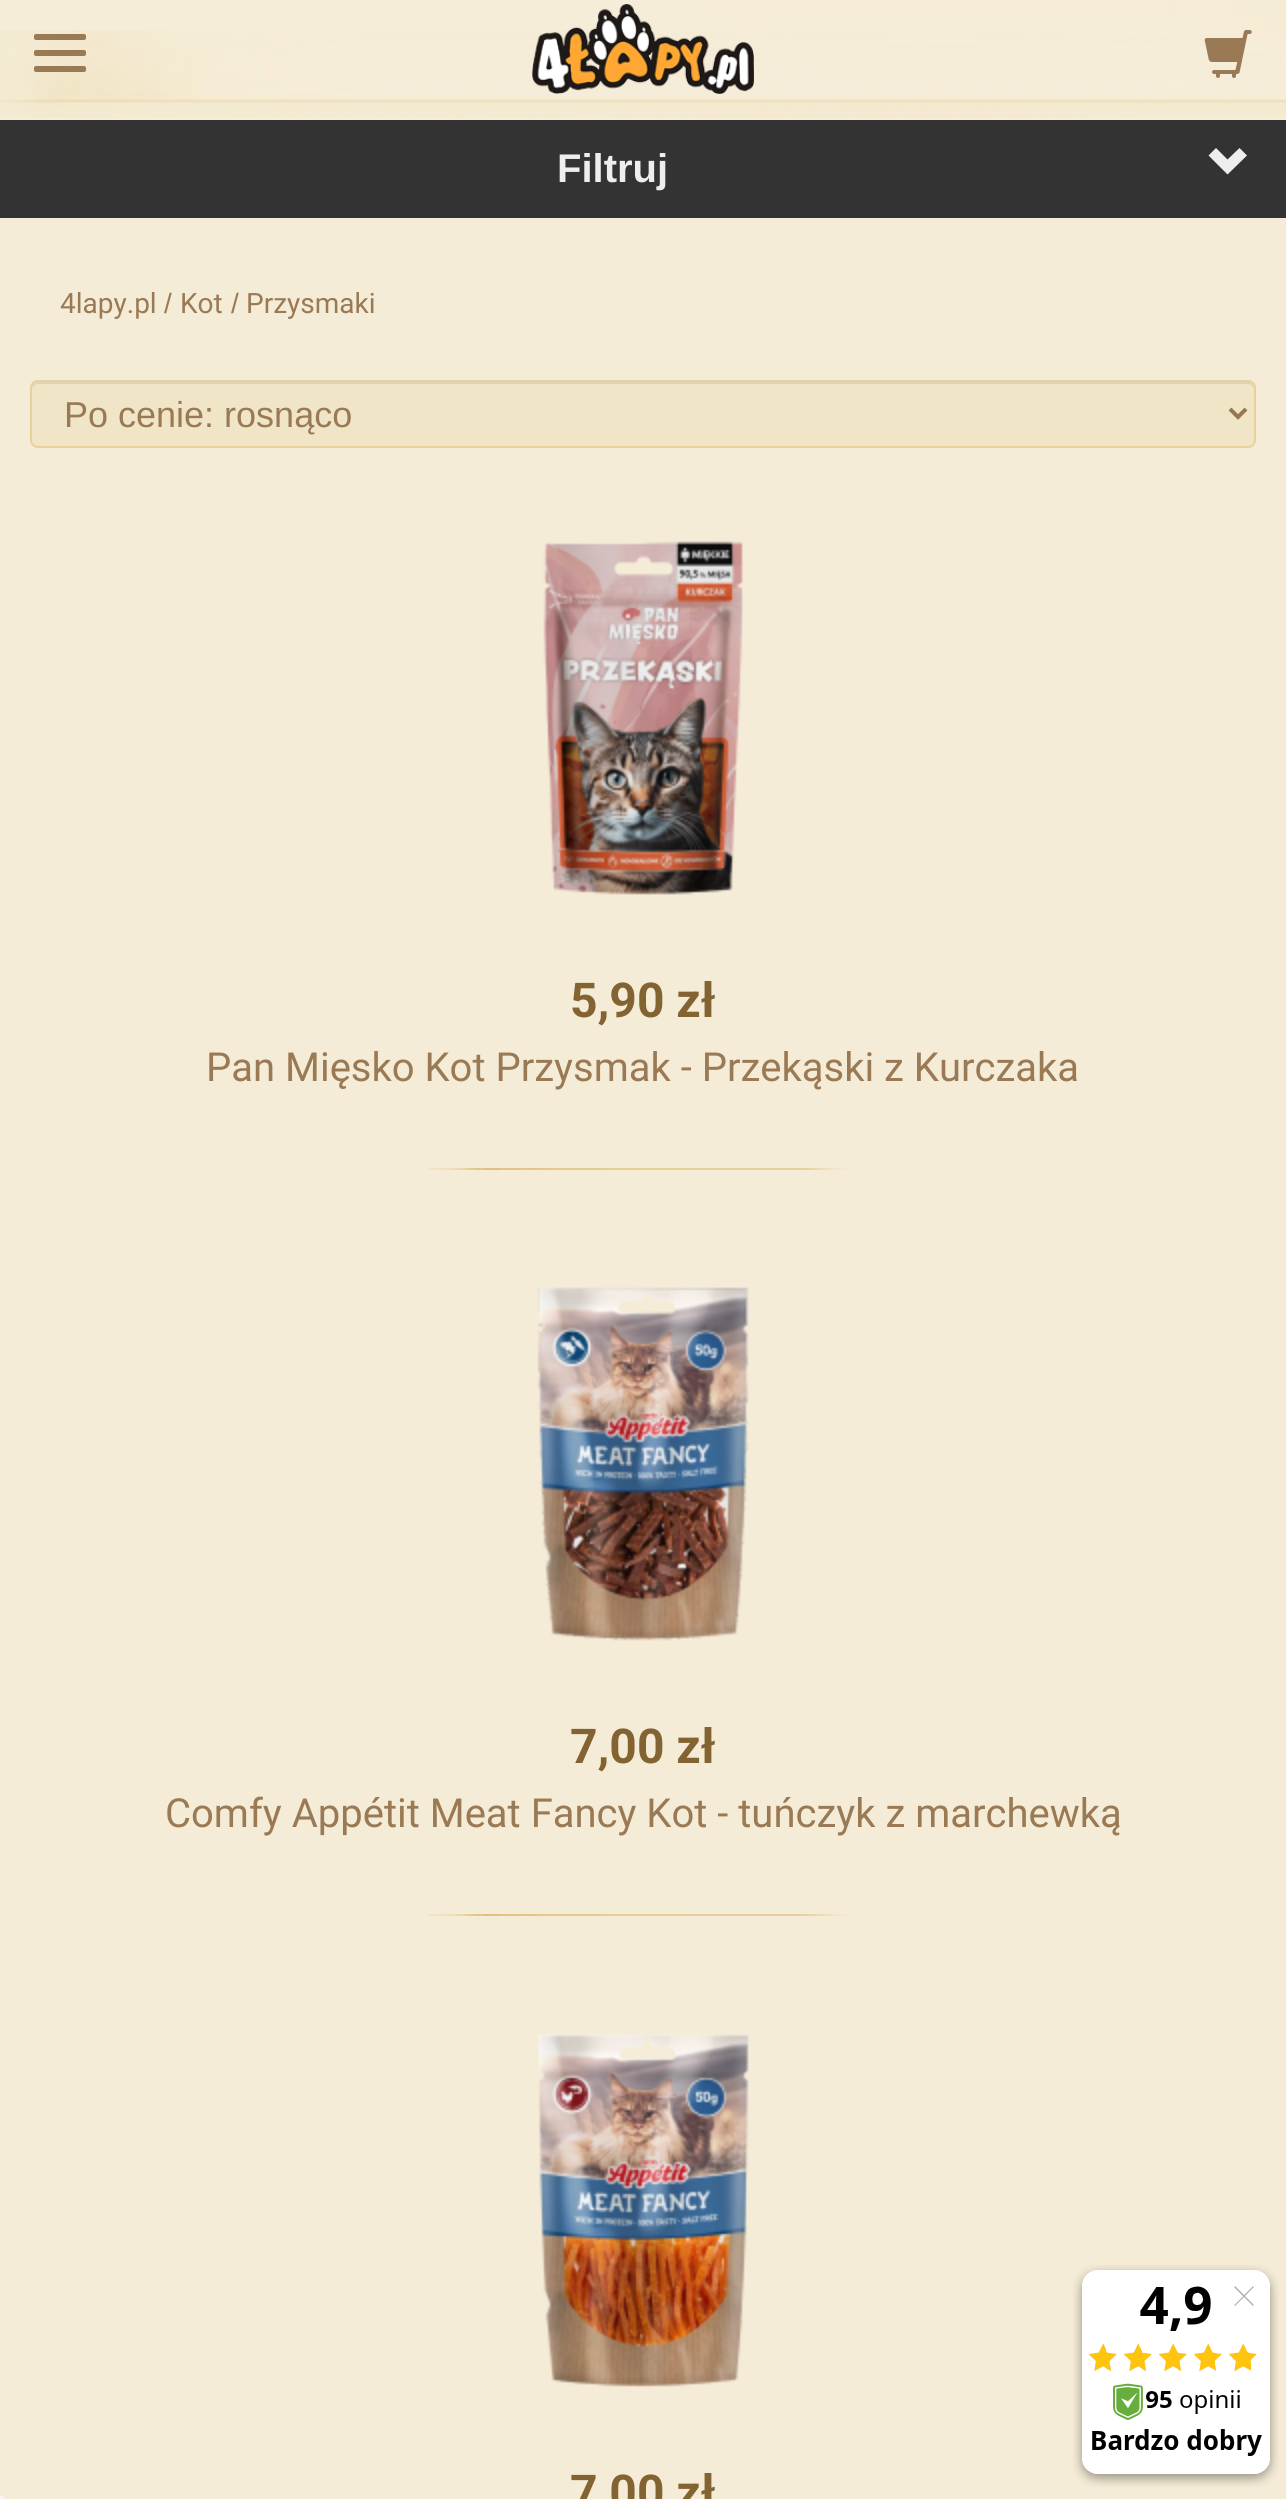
#include <cairo/cairo.h>
#include <math.h>
#include <stddef.h>


static void rounded_rect(cairo_t *cr, double x, double y, double w, double h, double r) {
  cairo_new_sub_path(cr);
  cairo_arc(cr, x + w - r, y + h - r, r, 0, M_PI / 2);
  cairo_arc(cr, x + r, y + h - r, r, M_PI / 2, M_PI);
  cairo_arc(cr, x + r, y + r, r, M_PI, 1.5 * M_PI);
  cairo_arc(cr, x + w - r, y + r, r, 1.5 * M_PI, 2 * M_PI);
  cairo_close_path(cr);
}

static void draw_image(cairo_t *cr, const char *path, double x, double y, double w, double h) {
  cairo_surface_t *image = cairo_image_surface_create_from_png(path);
  cairo_save(cr);
  cairo_set_source_surface(cr, image, x, y);
  cairo_rectangle(cr, x, y, w, h);
  cairo_fill(cr);
  cairo_restore(cr);
  cairo_surface_destroy(image);
}

static void draw(cairo_t *cr) {
  cairo_set_source_rgb(cr, 1, 1, 1);
  cairo_paint(cr);
  draw_image(cr, "images/1.png", 0, 0, 1286, 120);
  draw_image(cr, "images/2.png", 0, 30, 1286, 88);
  cairo_set_source_rgb(cr, 154 / 255.0, 122 / 255.0, 85 / 255.0);
  rounded_rect(cr, 34, 34, 52, 6, 2);
  cairo_fill(cr);
  rounded_rect(cr, 34, 50, 52, 6, 2);
  cairo_fill(cr);
  rounded_rect(cr, 34, 66, 52, 6, 2);
  cairo_fill(cr);
  draw_image(cr, "images/3.png", 532, 4, 222, 90);
  draw_image(cr, "images/4.png", 1204, 30, 48, 48);
  cairo_set_source_rgb(cr, 245 / 255.0, 236 / 255.0, 215 / 255.0);
  cairo_rectangle(cr, 0, 218, 1286, 2281);
  cairo_fill(cr);
  cairo_set_source_rgb(cr, 50 / 255.0, 51 / 255.0, 50 / 255.0);
  cairo_rectangle(cr, 0, 120, 1286, 98);
  cairo_fill(cr);
  cairo_set_source_rgb(cr, 238 / 255.0, 238 / 255.0, 238 / 255.0);
  cairo_new_path(cr);
  cairo_move_to(cr, 1208.5, 155.5);
  cairo_line_to(cr, 1227.5, 174.5);
  cairo_line_to(cr, 1247, 155.5);
  cairo_line_to(cr, 1239.5, 148);
  cairo_line_to(cr, 1227.5, 159.5);
  cairo_line_to(cr, 1216, 148);
  cairo_close_path(cr);
  cairo_fill(cr);
  cairo_set_source_rgb(cr, 241 / 255.0, 229 / 255.0, 199 / 255.0);
  rounded_rect(cr, 30, 380, 1226, 68, 8);
  cairo_fill(cr);
  cairo_set_source_rgb(cr, 223 / 255.0, 212 / 255.0, 184 / 255.0);
  cairo_new_path(cr);
  cairo_move_to(cr, 38, 384);
  cairo_line_to(cr, 1248, 384);
  cairo_curve_to(cr, 1251, 384, 1254, 387, 1254, 390);
  cairo_line_to(cr, 1254, 388);
  cairo_curve_to(cr, 1254, 385, 1251, 382, 1248, 382);
  cairo_line_to(cr, 38, 382);
  cairo_curve_to(cr, 35, 382, 32, 385, 32, 388);
  cairo_line_to(cr, 32, 390);
  cairo_curve_to(cr, 32, 387, 35, 384, 38, 384);
  cairo_close_path(cr);
  cairo_fill(cr);
  rounded_rect(cr, 31, 381, 1224, 66, 7);
  cairo_set_source_rgb(cr, 232 / 255.0, 209 / 255.0, 157 / 255.0);
  cairo_stroke(cr);
  cairo_new_path(cr);
  cairo_move_to(cr, 1230, 409);
  cairo_line_to(cr, 1238, 417);
  cairo_line_to(cr, 1246, 409);
  cairo_set_source_rgb(cr, 151 / 255.0, 118 / 255.0, 81 / 255.0);
  cairo_set_line_width(cr, 4);
  cairo_stroke(cr);
  draw_image(cr, "images/5.png", 543, 541, 201, 354);
  draw_image(cr, "images/6.png", 428, 1168, 421, 2);
  draw_image(cr, "images/7.png", 537, 1287, 212, 354);
  draw_image(cr, "images/6.png", 428, 1914, 421, 2);
  draw_image(cr, "images/8.png", 538, 2034, 211, 353);
  draw_image(cr, "images/9.png", 1073, 2265, 206, 222);
  cairo_set_source_rgb(cr, 245 / 255.0, 245 / 255.0, 245 / 255.0);
  cairo_rectangle(cr, 0, 2496, 4, 3);
  cairo_fill(cr);
  cairo_select_font_face(cr, "Liberation Sans", CAIRO_FONT_SLANT_NORMAL, CAIRO_FONT_WEIGHT_BOLD);
  cairo_set_font_size(cr, 40);
  cairo_set_source_rgb(cr, 238 / 255.0, 238 / 255.0, 238 / 255.0);
  cairo_move_to(cr, 557, 182);
  cairo_show_text(cr, "Filtruj");
  cairo_select_font_face(cr, "Roboto", CAIRO_FONT_SLANT_NORMAL, CAIRO_FONT_WEIGHT_NORMAL);
  cairo_set_font_size(cr, 28);
  cairo_set_source_rgb(cr, 154 / 255.0, 122 / 255.0, 85 / 255.0);
  cairo_move_to(cr, 60, 313);
  cairo_show_text(cr, "4lapy.pl");
  cairo_select_font_face(cr, "Liberation Sans", CAIRO_FONT_SLANT_NORMAL, CAIRO_FONT_WEIGHT_NORMAL);
  cairo_move_to(cr, 164, 313);
  cairo_show_text(cr, "/");
  cairo_select_font_face(cr, "Roboto", CAIRO_FONT_SLANT_NORMAL, CAIRO_FONT_WEIGHT_NORMAL);
  cairo_move_to(cr, 180, 313);
  cairo_show_text(cr, "Kot");
  cairo_select_font_face(cr, "Liberation Sans", CAIRO_FONT_SLANT_NORMAL, CAIRO_FONT_WEIGHT_NORMAL);
  cairo_move_to(cr, 231, 313);
  cairo_show_text(cr, "/");
  cairo_select_font_face(cr, "Roboto", CAIRO_FONT_SLANT_NORMAL, CAIRO_FONT_WEIGHT_NORMAL);
  cairo_move_to(cr, 246, 313);
  cairo_show_text(cr, "Przysmaki");
  cairo_select_font_face(cr, "Liberation Sans", CAIRO_FONT_SLANT_NORMAL, CAIRO_FONT_WEIGHT_NORMAL);
  cairo_set_font_size(cr, 36);
  cairo_move_to(cr, 64, 427);
  cairo_show_text(cr, "Po cenie: rosnąco");
  cairo_select_font_face(cr, "Roboto", CAIRO_FONT_SLANT_NORMAL, CAIRO_FONT_WEIGHT_BOLD);
  cairo_set_font_size(cr, 48);
  cairo_set_source_rgb(cr, 132 / 255.0, 99 / 255.0, 50 / 255.0);
  cairo_move_to(cr, 570, 1017);
  cairo_show_text(cr, "5,90 zł");
  cairo_select_font_face(cr, "Roboto", CAIRO_FONT_SLANT_NORMAL, CAIRO_FONT_WEIGHT_NORMAL);
  cairo_set_font_size(cr, 40);
  cairo_set_source_rgb(cr, 154 / 255.0, 122 / 255.0, 85 / 255.0);
  cairo_move_to(cr, 206, 1081);
  cairo_show_text(cr, "Pan Mięsko Kot Przysmak - Przekąski z Kurczaka");
  cairo_select_font_face(cr, "Roboto", CAIRO_FONT_SLANT_NORMAL, CAIRO_FONT_WEIGHT_BOLD);
  cairo_set_font_size(cr, 48);
  cairo_set_source_rgb(cr, 132 / 255.0, 99 / 255.0, 50 / 255.0);
  cairo_move_to(cr, 570, 1763);
  cairo_show_text(cr, "7,00 zł");
  cairo_select_font_face(cr, "Roboto", CAIRO_FONT_SLANT_NORMAL, CAIRO_FONT_WEIGHT_NORMAL);
  cairo_set_font_size(cr, 40);
  cairo_set_source_rgb(cr, 154 / 255.0, 122 / 255.0, 85 / 255.0);
  cairo_move_to(cr, 165, 1827);
  cairo_show_text(cr, "Comfy Appétit Meat Fancy Kot - tuńczyk z marchewką");
  cairo_select_font_face(cr, "Roboto", CAIRO_FONT_SLANT_NORMAL, CAIRO_FONT_WEIGHT_BOLD);
  cairo_set_font_size(cr, 48);
  cairo_set_source_rgb(cr, 132 / 255.0, 99 / 255.0, 50 / 255.0);
  cairo_move_to(cr, 570, 2509);
  cairo_show_text(cr, "7,00 zł");
}

int main(void) {
  cairo_surface_t *surface = cairo_image_surface_create(CAIRO_FORMAT_RGB24, 1286, 2499);
  cairo_t *cr = cairo_create(surface);
  cairo_font_options_t *options = cairo_font_options_create();
  cairo_font_options_set_hint_metrics(options, CAIRO_HINT_METRICS_OFF);
  cairo_font_options_set_hint_style(options, CAIRO_HINT_STYLE_NONE);
  cairo_set_font_options(cr, options);
  cairo_set_miter_limit(cr, 4);
  draw(cr);
  cairo_surface_write_to_png(surface, "out.png");
  cairo_font_options_destroy(options);
  cairo_destroy(cr);
  cairo_surface_destroy(surface);
  return 0;
}
